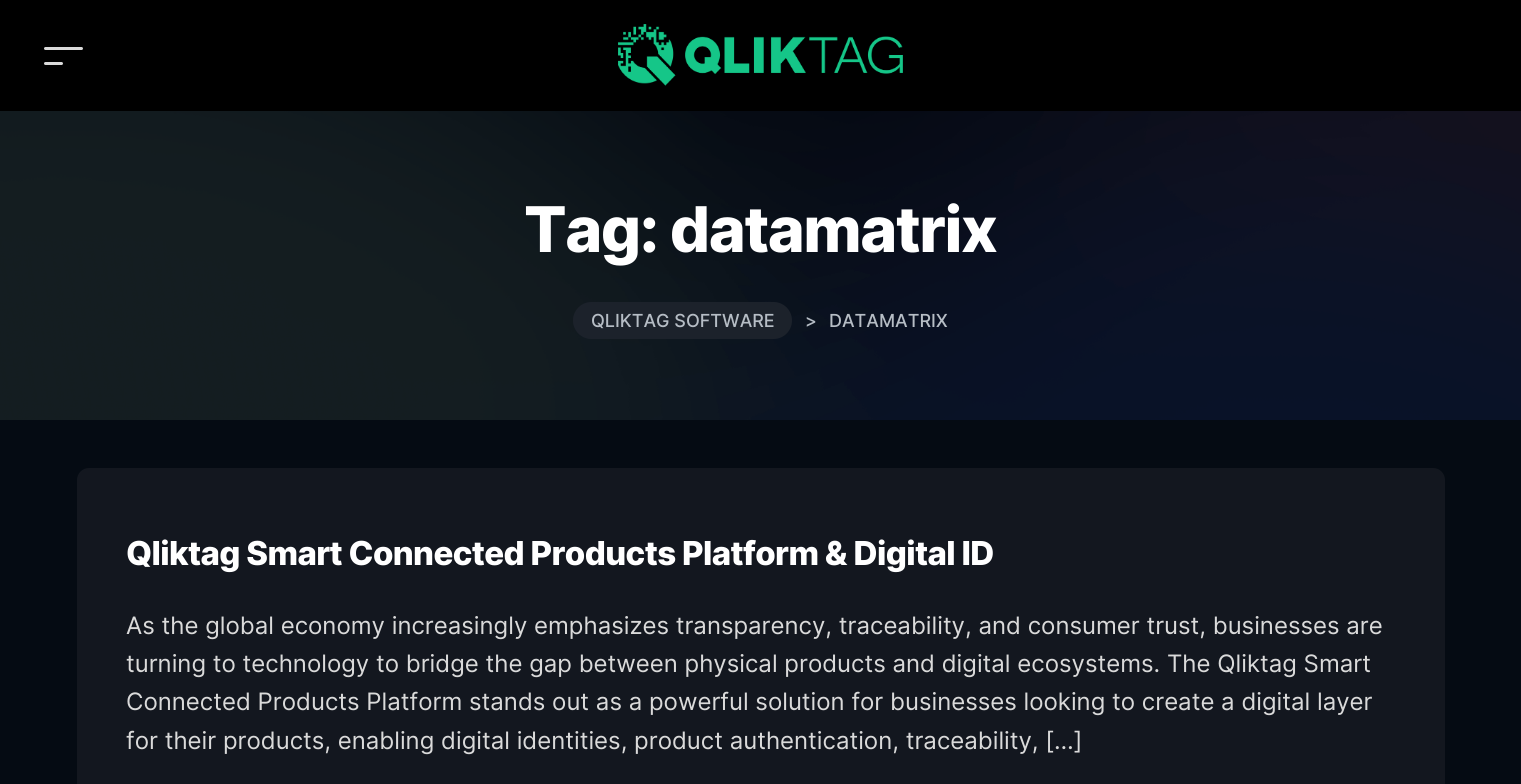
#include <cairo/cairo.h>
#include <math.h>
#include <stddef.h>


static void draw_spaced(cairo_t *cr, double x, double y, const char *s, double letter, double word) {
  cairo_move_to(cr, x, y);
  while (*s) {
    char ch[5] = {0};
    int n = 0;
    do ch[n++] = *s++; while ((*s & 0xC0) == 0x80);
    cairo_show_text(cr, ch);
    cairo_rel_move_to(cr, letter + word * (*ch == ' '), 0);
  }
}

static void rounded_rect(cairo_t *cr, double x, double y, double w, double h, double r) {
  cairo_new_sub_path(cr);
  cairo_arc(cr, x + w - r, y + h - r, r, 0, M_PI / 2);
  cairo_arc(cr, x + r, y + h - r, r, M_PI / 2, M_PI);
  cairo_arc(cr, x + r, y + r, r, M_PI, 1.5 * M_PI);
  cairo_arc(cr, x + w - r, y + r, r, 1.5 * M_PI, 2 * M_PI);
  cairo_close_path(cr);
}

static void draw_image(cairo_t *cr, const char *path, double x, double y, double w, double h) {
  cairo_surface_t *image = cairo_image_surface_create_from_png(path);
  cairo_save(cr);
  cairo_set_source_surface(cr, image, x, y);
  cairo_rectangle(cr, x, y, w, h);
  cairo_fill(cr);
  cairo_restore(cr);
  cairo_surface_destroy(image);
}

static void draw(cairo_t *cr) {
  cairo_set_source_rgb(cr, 5 / 255.0, 11 / 255.0, 19 / 255.0);
  cairo_paint(cr);
  cairo_set_source_rgb(cr, 0, 0, 0);
  cairo_rectangle(cr, 0, 0, 1521, 111);
  cairo_fill(cr);
  cairo_set_source_rgb(cr, 218 / 255.0, 218 / 255.0, 218 / 255.0);
  rounded_rect(cr, 44, 47, 39, 3, 1.5);
  cairo_fill(cr);
  rounded_rect(cr, 44, 62, 19, 3, 1.5);
  cairo_fill(cr);
  draw_image(cr, "images/1.png", 618, 24, 285, 62);
  draw_image(cr, "images/2.png", 0, 111, 1521, 309);
  cairo_set_source_rgb(cr, 28 / 255.0, 34 / 255.0, 43 / 255.0);
  rounded_rect(cr, 573, 302, 219, 37, 18.5);
  cairo_fill(cr);
  cairo_set_source_rgb(cr, 19 / 255.0, 23 / 255.0, 31 / 255.0);
  rounded_rect(cr, 77, 468, 1368, 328, 12);
  cairo_fill(cr);
  cairo_select_font_face(cr, "Inter ExtraBold", CAIRO_FONT_SLANT_NORMAL, CAIRO_FONT_WEIGHT_NORMAL);
  cairo_set_font_size(cr, 63);
  cairo_set_source_rgb(cr, 1, 1, 1);
  draw_spaced(cr, 524, 252, "Tag: datamatrix", -1.4, 0);
  cairo_select_font_face(cr, "Inter Medium", CAIRO_FONT_SLANT_NORMAL, CAIRO_FONT_WEIGHT_NORMAL);
  cairo_set_font_size(cr, 18);
  cairo_set_source_rgb(cr, 182 / 255.0, 189 / 255.0, 197 / 255.0);
  cairo_move_to(cr, 591, 327);
  cairo_show_text(cr, "QLIKTAG SOFTWARE");
  cairo_move_to(cr, 805, 327);
  cairo_show_text(cr, ">");
  cairo_move_to(cr, 829, 327);
  cairo_show_text(cr, "DATAMATRIX");
  cairo_select_font_face(cr, "Inter ExtraBold", CAIRO_FONT_SLANT_NORMAL, CAIRO_FONT_WEIGHT_NORMAL);
  cairo_set_font_size(cr, 33);
  cairo_set_source_rgb(cr, 1, 1, 1);
  draw_spaced(cr, 126, 565, "Qliktag Smart Connected Products Platform & Digital ID", -0.6, 0);
  cairo_select_font_face(cr, "Inter", CAIRO_FONT_SLANT_NORMAL, CAIRO_FONT_WEIGHT_NORMAL);
  cairo_set_font_size(cr, 24);
  cairo_set_source_rgb(cr, 218 / 255.0, 218 / 255.0, 218 / 255.0);
  cairo_move_to(cr, 126, 634);
  cairo_show_text(cr, "As the global economy increasingly emphasizes transparency, traceability, and consumer trust, businesses are");
  cairo_move_to(cr, 126, 672);
  cairo_show_text(cr, "turning to technology to bridge the gap between physical products and digital ecosystems. The Qliktag Smart");
  cairo_move_to(cr, 126, 710);
  cairo_show_text(cr, "Connected Products Platform stands out as a powerful solution for businesses looking to create a digital layer");
  cairo_move_to(cr, 126, 749);
  cairo_show_text(cr, "for their products, enabling digital identities, product authentication, traceability, […]");
}

int main(void) {
  cairo_surface_t *surface = cairo_image_surface_create(CAIRO_FORMAT_RGB24, 1521, 784);
  cairo_t *cr = cairo_create(surface);
  cairo_font_options_t *options = cairo_font_options_create();
  cairo_font_options_set_hint_metrics(options, CAIRO_HINT_METRICS_OFF);
  cairo_font_options_set_hint_style(options, CAIRO_HINT_STYLE_NONE);
  cairo_set_font_options(cr, options);
  cairo_set_miter_limit(cr, 4);
  draw(cr);
  cairo_surface_write_to_png(surface, "out.png");
  cairo_font_options_destroy(options);
  cairo_destroy(cr);
  cairo_surface_destroy(surface);
  return 0;
}
